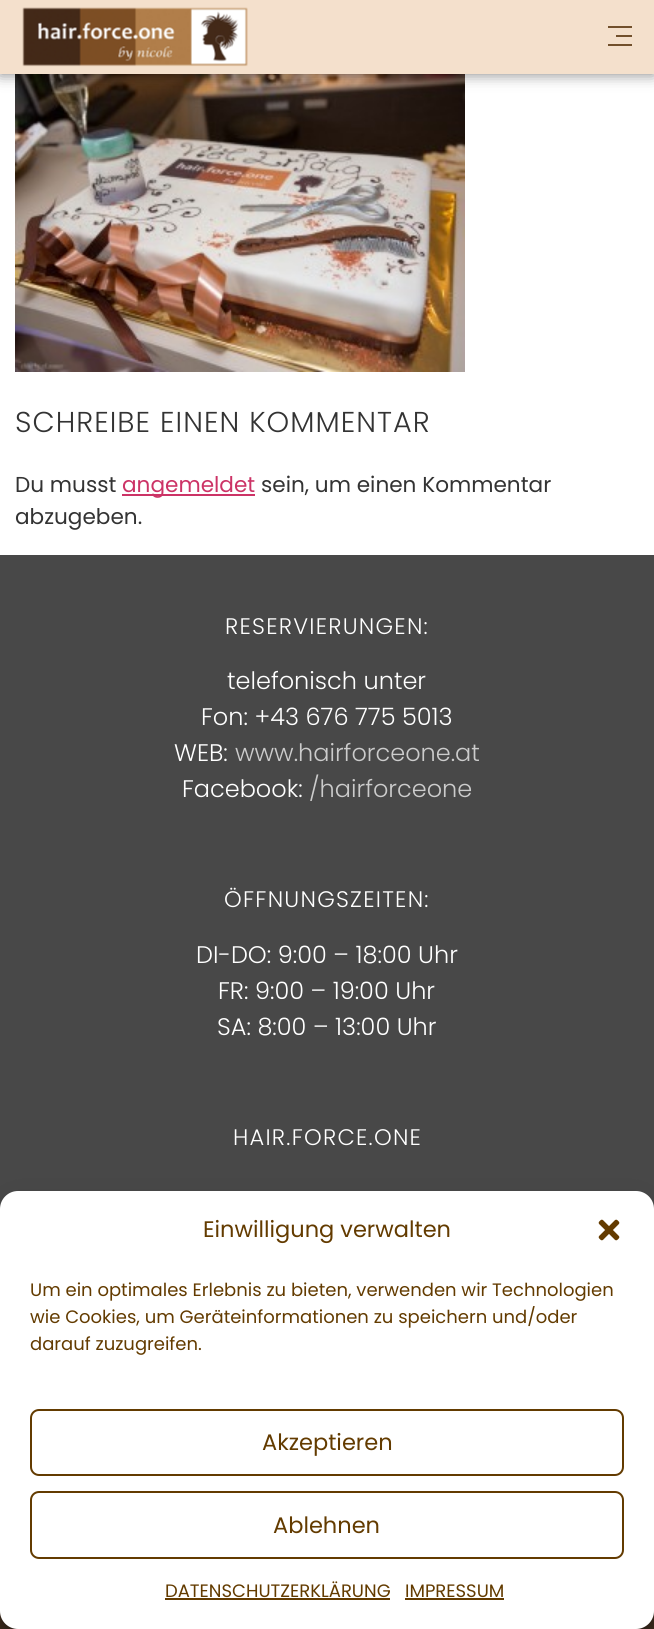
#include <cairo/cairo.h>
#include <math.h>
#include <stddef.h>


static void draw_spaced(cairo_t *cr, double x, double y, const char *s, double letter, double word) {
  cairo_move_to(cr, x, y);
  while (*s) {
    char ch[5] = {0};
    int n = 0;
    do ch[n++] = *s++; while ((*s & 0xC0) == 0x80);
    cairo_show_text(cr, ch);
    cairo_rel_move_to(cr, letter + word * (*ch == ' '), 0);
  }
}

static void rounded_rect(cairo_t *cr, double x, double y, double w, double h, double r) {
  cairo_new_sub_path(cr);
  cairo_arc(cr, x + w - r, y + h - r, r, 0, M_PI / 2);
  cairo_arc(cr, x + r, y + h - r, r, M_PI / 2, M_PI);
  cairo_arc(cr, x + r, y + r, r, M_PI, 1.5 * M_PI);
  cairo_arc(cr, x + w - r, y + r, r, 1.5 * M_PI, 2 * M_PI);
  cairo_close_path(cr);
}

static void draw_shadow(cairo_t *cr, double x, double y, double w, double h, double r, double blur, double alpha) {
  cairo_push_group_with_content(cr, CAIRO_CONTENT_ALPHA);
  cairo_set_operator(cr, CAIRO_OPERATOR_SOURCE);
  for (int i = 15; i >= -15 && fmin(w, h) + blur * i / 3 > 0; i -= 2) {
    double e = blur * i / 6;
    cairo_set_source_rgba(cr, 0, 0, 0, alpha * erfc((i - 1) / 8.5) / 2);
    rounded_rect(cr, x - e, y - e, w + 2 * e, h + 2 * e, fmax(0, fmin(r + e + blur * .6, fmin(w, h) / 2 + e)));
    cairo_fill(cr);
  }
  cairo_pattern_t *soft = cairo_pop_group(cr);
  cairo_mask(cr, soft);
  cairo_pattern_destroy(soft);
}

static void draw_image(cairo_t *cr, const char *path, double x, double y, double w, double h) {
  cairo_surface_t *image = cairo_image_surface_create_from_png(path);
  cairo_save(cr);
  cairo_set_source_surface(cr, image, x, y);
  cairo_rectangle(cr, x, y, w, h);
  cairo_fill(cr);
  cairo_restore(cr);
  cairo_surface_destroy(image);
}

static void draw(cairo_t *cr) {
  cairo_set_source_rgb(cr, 1, 1, 1);
  cairo_paint(cr);
  draw_image(cr, "images/2.png", 15, 74, 450, 298);
  cairo_set_source_rgb(cr, 0, 0, 0);
  draw_shadow(cr, 0, 0, 654, 74, 0, 7.5, 0.5);
  cairo_set_source_rgb(cr, 244 / 255.0, 224 / 255.0, 204 / 255.0);
  cairo_rectangle(cr, 0, 0, 654, 74);
  cairo_fill(cr);
  draw_image(cr, "images/1.png", 22, 7, 226, 60);
  cairo_set_source_rgb(cr, 114 / 255.0, 80 / 255.0, 44 / 255.0);
  cairo_rectangle(cr, 608, 26, 24, 2);
  cairo_fill(cr);
  cairo_rectangle(cr, 608, 44, 24, 2);
  cairo_fill(cr);
  cairo_rectangle(cr, 616, 35, 16, 2);
  cairo_fill(cr);
  cairo_set_source_rgb(cr, 204 / 255.0, 51 / 255.0, 102 / 255.0);
  cairo_rectangle(cr, 122, 494, 133, 2);
  cairo_fill(cr);
  cairo_set_source_rgb(cr, 72 / 255.0, 72 / 255.0, 72 / 255.0);
  cairo_rectangle(cr, 0, 555, 654, 654);
  cairo_fill(cr);
  cairo_set_source_rgb(cr, 64 / 255.0, 46 / 255.0, 32 / 255.0);
  cairo_rectangle(cr, 0, 1611, 654, 18);
  cairo_fill(cr);
  cairo_set_source_rgb(cr, 0, 0, 0);
  draw_shadow(cr, 0, 1200, 654, 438, 18, 4.5, 0.23);
  draw_shadow(cr, 0, 1206, 654, 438, 18, 15, 0.19);
  cairo_set_source_rgb(cr, 1, 1, 1);
  rounded_rect(cr, 0, 1191, 654, 438, 18);
  cairo_fill(cr);
  draw_image(cr, "images/3.png", 598, 1219, 22, 22);
  rounded_rect(cr, 31, 1410, 592, 65, 8);
  cairo_set_source_rgb(cr, 99 / 255.0, 59 / 255.0, 0);
  cairo_stroke(cr);
  rounded_rect(cr, 31, 1492, 592, 66, 8);
  cairo_stroke(cr);
  cairo_rectangle(cr, 165, 1598, 225, 2);
  cairo_fill(cr);
  cairo_rectangle(cr, 405, 1598, 99, 2);
  cairo_fill(cr);
  cairo_select_font_face(cr, "Poppins Light", CAIRO_FONT_SLANT_NORMAL, CAIRO_FONT_WEIGHT_NORMAL);
  cairo_set_font_size(cr, 28.75);
  cairo_set_source_rgb(cr, 51 / 255.0, 51 / 255.0, 51 / 255.0);
  draw_spaced(cr, 15, 432, "SCHREIBE EINEN KOMMENTAR", 1.05, 0);
  cairo_select_font_face(cr, "Poppins", CAIRO_FONT_SLANT_NORMAL, CAIRO_FONT_WEIGHT_NORMAL);
  cairo_set_font_size(cr, 21.6);
  cairo_move_to(cr, 15, 492);
  cairo_show_text(cr, "Du musst");
  cairo_set_source_rgb(cr, 204 / 255.0, 51 / 255.0, 102 / 255.0);
  cairo_move_to(cr, 122, 492);
  cairo_show_text(cr, "angemeldet");
  cairo_set_source_rgb(cr, 51 / 255.0, 51 / 255.0, 51 / 255.0);
  cairo_move_to(cr, 261, 492);
  cairo_show_text(cr, "sein, um einen Kommentar");
  cairo_move_to(cr, 15, 524);
  cairo_show_text(cr, "abzugeben.");
  cairo_select_font_face(cr, "Poppins Light", CAIRO_FONT_SLANT_NORMAL, CAIRO_FONT_WEIGHT_NORMAL);
  cairo_set_font_size(cr, 22.5);
  cairo_set_source_rgb(cr, 1, 1, 1);
  draw_spaced(cr, 225, 634, "RESERVIERUNGEN:", 1.25, 0);
  cairo_set_font_size(cr, 24);
  cairo_move_to(cr, 227, 689);
  cairo_show_text(cr, "telefonisch unter");
  cairo_move_to(cr, 201, 725);
  cairo_show_text(cr, "Fon: +43 676 775 5013");
  cairo_move_to(cr, 174, 761);
  cairo_show_text(cr, "WEB:");
  cairo_set_source_rgb(cr, 204 / 255.0, 204 / 255.0, 204 / 255.0);
  cairo_move_to(cr, 235, 761);
  cairo_show_text(cr, "www.hairforceone.at");
  cairo_set_source_rgb(cr, 1, 1, 1);
  cairo_move_to(cr, 182, 797);
  cairo_show_text(cr, "Facebook:");
  cairo_set_source_rgb(cr, 204 / 255.0, 204 / 255.0, 204 / 255.0);
  cairo_move_to(cr, 309, 797);
  cairo_show_text(cr, "/hairforceone");
  cairo_set_font_size(cr, 22.5);
  cairo_set_source_rgb(cr, 1, 1, 1);
  draw_spaced(cr, 224, 907, "ÖFFNUNGSZEITEN:", 1.25, 0);
  cairo_set_font_size(cr, 24);
  cairo_move_to(cr, 196, 963);
  cairo_show_text(cr, "DI-DO: 9:00 – 18:00 Uhr");
  cairo_move_to(cr, 218, 999);
  cairo_show_text(cr, "FR: 9:00 – 19:00 Uhr");
  cairo_move_to(cr, 217, 1035);
  cairo_show_text(cr, "SA: 8:00 – 13:00 Uhr");
  cairo_set_font_size(cr, 22.5);
  draw_spaced(cr, 233, 1145, "HAIR.FORCE.ONE", 1.25, 0);
  cairo_select_font_face(cr, "Poppins", CAIRO_FONT_SLANT_NORMAL, CAIRO_FONT_WEIGHT_NORMAL);
  cairo_set_source_rgb(cr, 99 / 255.0, 59 / 255.0, 0);
  cairo_move_to(cr, 203, 1237);
  cairo_show_text(cr, "Einwilligung verwalten");
  cairo_set_font_size(cr, 18);
  cairo_move_to(cr, 30, 1296);
  cairo_show_text(cr, "Um ein optimales Erlebnis zu bieten, verwenden wir Technologien");
  cairo_move_to(cr, 30, 1323);
  cairo_show_text(cr, "wie Cookies, um Geräteinformationen zu speichern und/oder");
  cairo_move_to(cr, 30, 1350);
  cairo_show_text(cr, "darauf zuzugreifen.");
  cairo_set_font_size(cr, 22.5);
  cairo_move_to(cr, 262, 1450);
  cairo_show_text(cr, "Akzeptieren");
  cairo_move_to(cr, 273, 1533);
  cairo_show_text(cr, "Ablehnen");
  cairo_set_font_size(cr, 18);
  cairo_move_to(cr, 165, 1597);
  cairo_show_text(cr, "DATENSCHUTZERKLÄRUNG");
  cairo_move_to(cr, 405, 1597);
  cairo_show_text(cr, "IMPRESSUM");
}

int main(void) {
  cairo_surface_t *surface = cairo_image_surface_create(CAIRO_FORMAT_RGB24, 654, 1629);
  cairo_t *cr = cairo_create(surface);
  cairo_font_options_t *options = cairo_font_options_create();
  cairo_font_options_set_hint_metrics(options, CAIRO_HINT_METRICS_OFF);
  cairo_font_options_set_hint_style(options, CAIRO_HINT_STYLE_NONE);
  cairo_set_font_options(cr, options);
  cairo_set_miter_limit(cr, 4);
  draw(cr);
  cairo_surface_write_to_png(surface, "out.png");
  cairo_font_options_destroy(options);
  cairo_destroy(cr);
  cairo_surface_destroy(surface);
  return 0;
}
